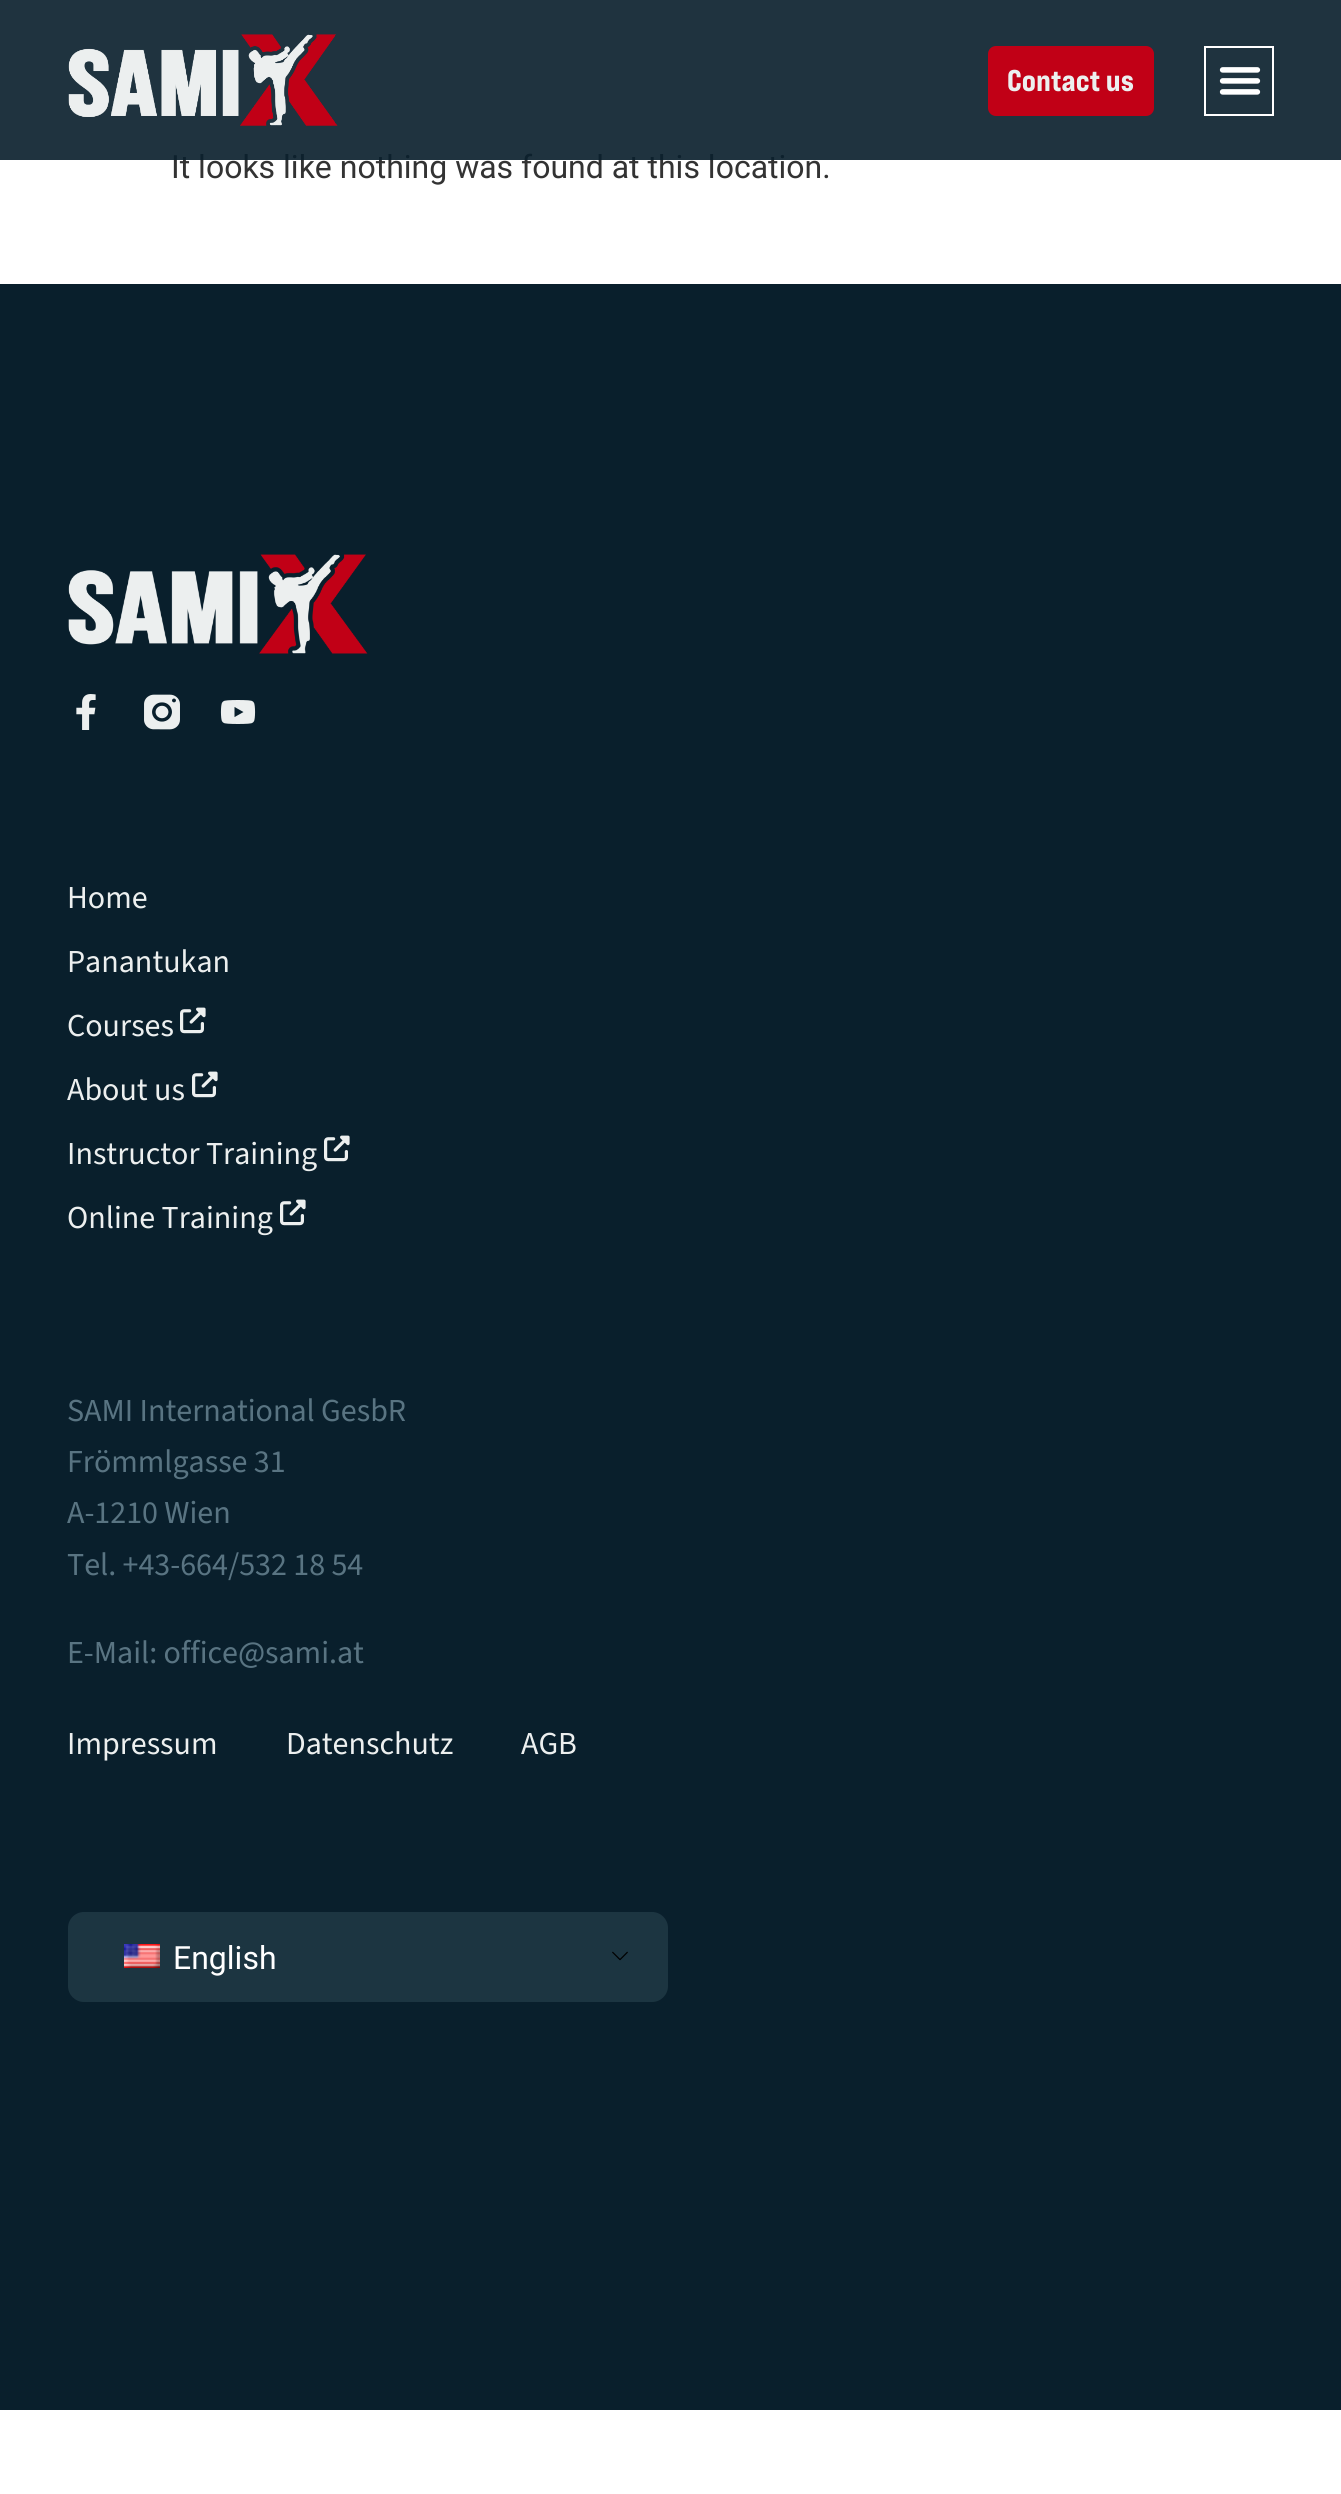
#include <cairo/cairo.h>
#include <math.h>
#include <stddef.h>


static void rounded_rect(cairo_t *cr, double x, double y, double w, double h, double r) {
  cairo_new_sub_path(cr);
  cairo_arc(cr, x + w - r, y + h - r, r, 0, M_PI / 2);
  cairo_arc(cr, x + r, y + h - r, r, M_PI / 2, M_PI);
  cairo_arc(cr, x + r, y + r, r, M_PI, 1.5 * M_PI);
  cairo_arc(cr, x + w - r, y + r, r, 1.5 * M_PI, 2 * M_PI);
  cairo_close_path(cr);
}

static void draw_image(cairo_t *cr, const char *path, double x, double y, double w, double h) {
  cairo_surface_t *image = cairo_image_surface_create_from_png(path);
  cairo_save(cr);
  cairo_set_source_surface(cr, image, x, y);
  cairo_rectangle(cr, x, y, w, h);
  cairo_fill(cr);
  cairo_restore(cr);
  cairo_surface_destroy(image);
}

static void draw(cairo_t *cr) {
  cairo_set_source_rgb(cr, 1, 1, 1);
  cairo_paint(cr);
  cairo_set_source_rgb(cr, 9 / 255.0, 31 / 255.0, 44 / 255.0);
  cairo_rectangle(cr, 0, 284, 1341, 2126);
  cairo_fill(cr);
  draw_image(cr, "images/3.png", 68, 554, 300, 100);
  draw_image(cr, "images/4.png", 76, 694, 20, 36);
  draw_image(cr, "images/5.png", 144, 694, 36, 36);
  draw_image(cr, "images/6.png", 220, 700, 36, 24);
  draw_image(cr, "images/7.png", 180, 1007, 26, 27);
  draw_image(cr, "images/7.png", 192, 1071, 26, 27);
  draw_image(cr, "images/7.png", 324, 1135, 26, 27);
  draw_image(cr, "images/7.png", 280, 1199, 26, 27);
  cairo_set_source_rgb(cr, 28 / 255.0, 53 / 255.0, 65 / 255.0);
  rounded_rect(cr, 68, 1912, 600, 90, 16);
  cairo_fill(cr);
  draw_image(cr, "images/8.png", 612, 1951, 16, 10);
  draw_image(cr, "images/9.png", 124, 1944, 36, 24);
  cairo_select_font_face(cr, "Roboto", CAIRO_FONT_SLANT_NORMAL, CAIRO_FONT_WEIGHT_NORMAL);
  cairo_set_font_size(cr, 32);
  cairo_set_source_rgb(cr, 51 / 255.0, 51 / 255.0, 51 / 255.0);
  cairo_move_to(cr, 171, 178);
  cairo_show_text(cr, "It looks like nothing was found at this location.");
  cairo_set_source_rgba(cr, 9 / 255.0, 31 / 255.0, 44 / 255.0, 0.91);
  cairo_rectangle(cr, 0, 0, 1341, 160);
  cairo_fill(cr);
  cairo_rectangle(cr, 1205, 47, 68, 68);
  cairo_set_source_rgb(cr, 1, 1, 1);
  cairo_stroke(cr);
  draw_image(cr, "images/2.png", 1219, 67, 42, 28);
  cairo_set_source_rgb(cr, 193 / 255.0, 0, 22 / 255.0);
  rounded_rect(cr, 988, 46, 166, 70, 8);
  cairo_fill(cr);
  cairo_select_font_face(cr, "Bebas Neue ExtraBold", CAIRO_FONT_SLANT_NORMAL, CAIRO_FONT_WEIGHT_NORMAL);
  cairo_set_font_size(cr, 30);
  cairo_set_source_rgb(cr, 236 / 255.0, 239 / 255.0, 239 / 255.0);
  cairo_move_to(cr, 1007, 91);
  cairo_show_text(cr, "Contact us");
  draw_image(cr, "images/1.png", 68, 34, 270, 92);
  cairo_select_font_face(cr, "Source Sans 3", CAIRO_FONT_SLANT_NORMAL, CAIRO_FONT_WEIGHT_NORMAL);
  cairo_set_font_size(cr, 32);
  cairo_move_to(cr, 67, 908);
  cairo_show_text(cr, "Home");
  cairo_move_to(cr, 67, 972);
  cairo_show_text(cr, "Panantukan");
  cairo_move_to(cr, 67, 1036);
  cairo_show_text(cr, "Courses");
  cairo_move_to(cr, 67, 1100);
  cairo_show_text(cr, "About us");
  cairo_move_to(cr, 67, 1164);
  cairo_show_text(cr, "Instructor Training");
  cairo_move_to(cr, 67, 1228);
  cairo_show_text(cr, "Online Training");
  cairo_set_source_rgb(cr, 89 / 255.0, 116 / 255.0, 130 / 255.0);
  cairo_move_to(cr, 67, 1421);
  cairo_show_text(cr, "SAMI International GesbR");
  cairo_move_to(cr, 67, 1472);
  cairo_show_text(cr, "Frömmlgasse 31");
  cairo_move_to(cr, 67, 1523);
  cairo_show_text(cr, "A-1210 Wien");
  cairo_move_to(cr, 67, 1575);
  cairo_show_text(cr, "Tel. +43-664/532 18 54");
  cairo_move_to(cr, 67, 1663);
  cairo_show_text(cr, "E-Mail: office@sami.at");
  cairo_set_source_rgb(cr, 236 / 255.0, 239 / 255.0, 239 / 255.0);
  cairo_move_to(cr, 67, 1754);
  cairo_show_text(cr, "Impressum");
  cairo_move_to(cr, 286, 1754);
  cairo_show_text(cr, "Datenschutz");
  cairo_move_to(cr, 521, 1754);
  cairo_show_text(cr, "AGB");
  cairo_select_font_face(cr, "Roboto", CAIRO_FONT_SLANT_NORMAL, CAIRO_FONT_WEIGHT_NORMAL);
  cairo_set_source_rgb(cr, 1, 1, 1);
  cairo_move_to(cr, 173, 1969);
  cairo_show_text(cr, "English");
}

int main(void) {
  cairo_surface_t *surface = cairo_image_surface_create(CAIRO_FORMAT_RGB24, 1341, 2494);
  cairo_t *cr = cairo_create(surface);
  cairo_font_options_t *options = cairo_font_options_create();
  cairo_font_options_set_hint_metrics(options, CAIRO_HINT_METRICS_OFF);
  cairo_font_options_set_hint_style(options, CAIRO_HINT_STYLE_NONE);
  cairo_set_font_options(cr, options);
  cairo_set_miter_limit(cr, 4);
  draw(cr);
  cairo_surface_write_to_png(surface, "out.png");
  cairo_font_options_destroy(options);
  cairo_destroy(cr);
  cairo_surface_destroy(surface);
  return 0;
}
